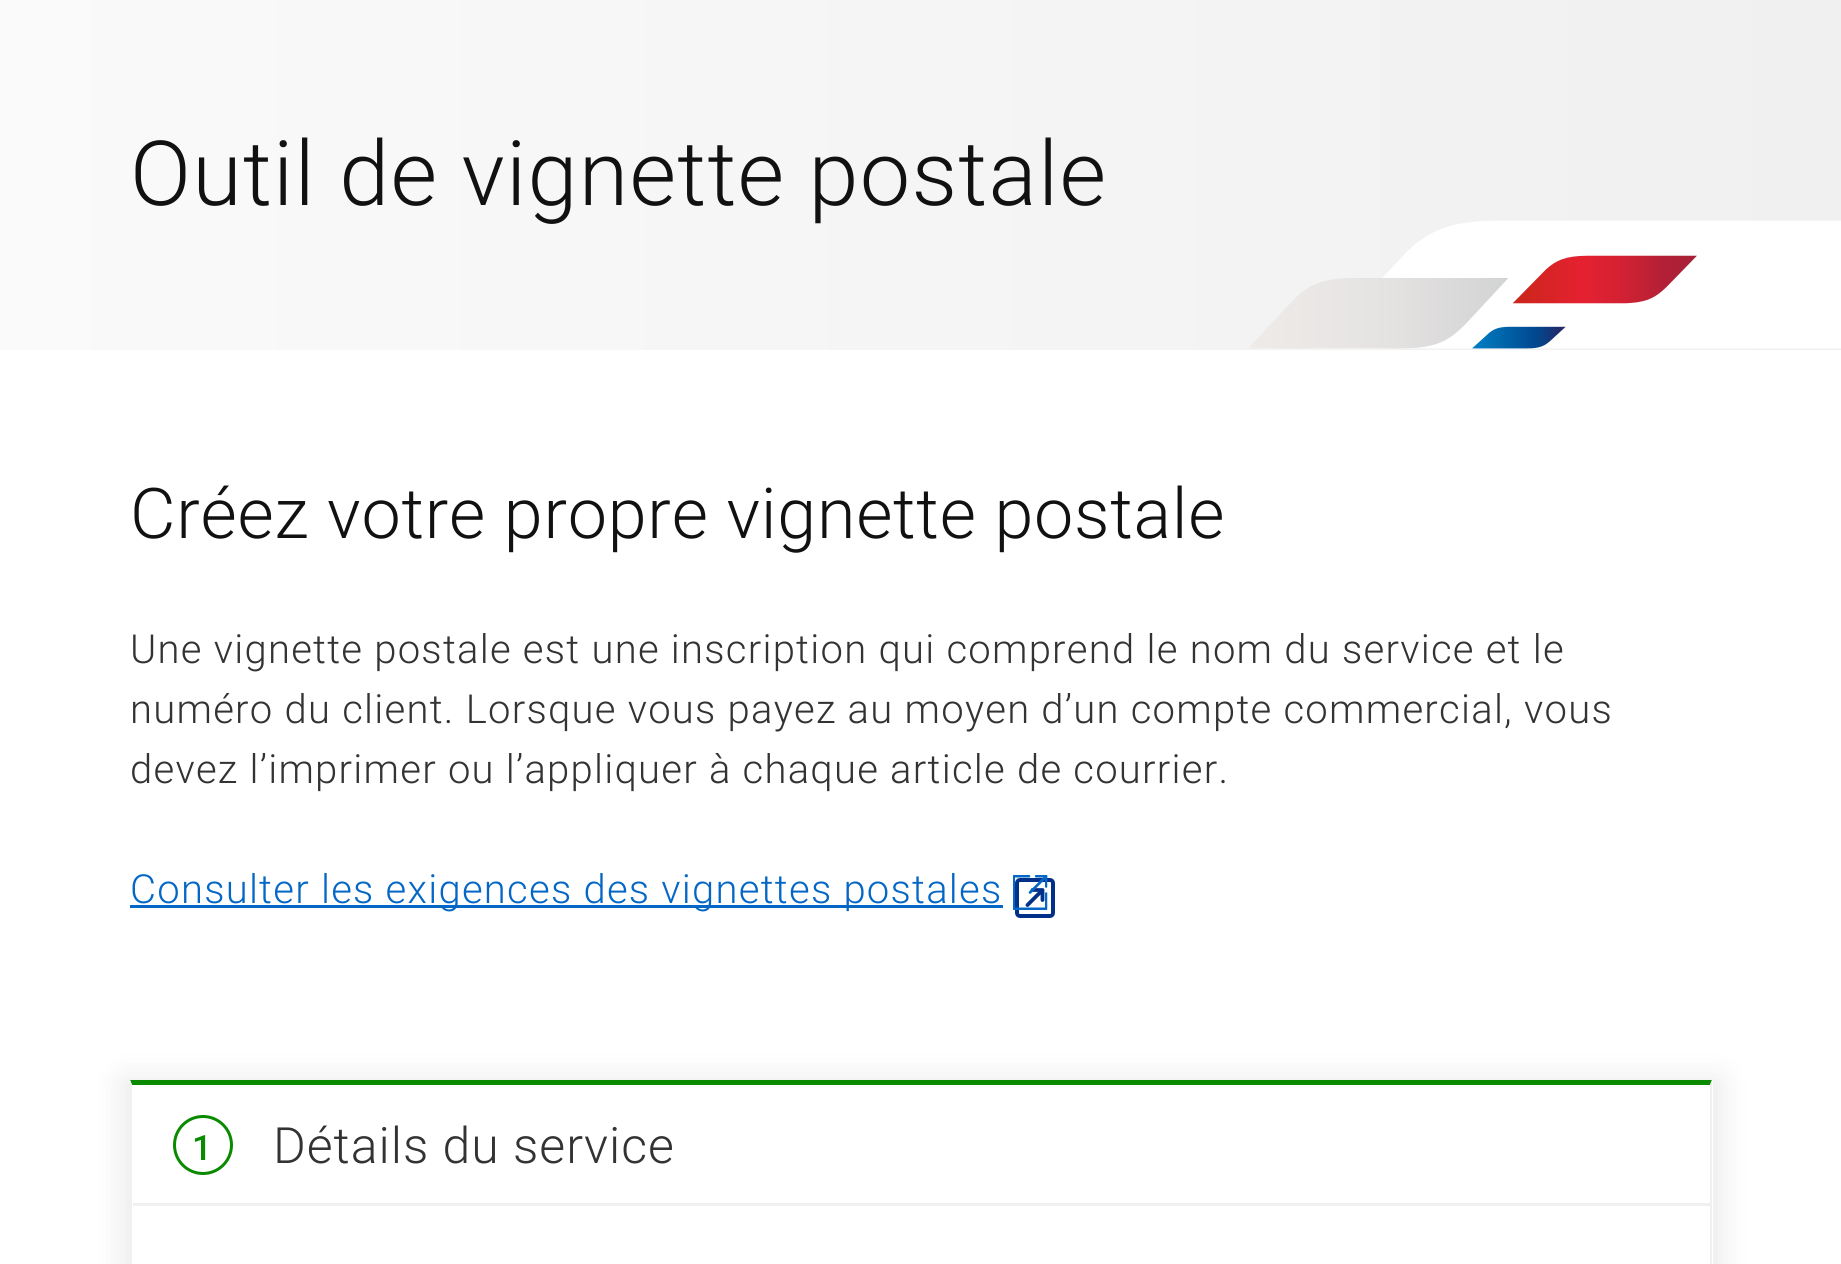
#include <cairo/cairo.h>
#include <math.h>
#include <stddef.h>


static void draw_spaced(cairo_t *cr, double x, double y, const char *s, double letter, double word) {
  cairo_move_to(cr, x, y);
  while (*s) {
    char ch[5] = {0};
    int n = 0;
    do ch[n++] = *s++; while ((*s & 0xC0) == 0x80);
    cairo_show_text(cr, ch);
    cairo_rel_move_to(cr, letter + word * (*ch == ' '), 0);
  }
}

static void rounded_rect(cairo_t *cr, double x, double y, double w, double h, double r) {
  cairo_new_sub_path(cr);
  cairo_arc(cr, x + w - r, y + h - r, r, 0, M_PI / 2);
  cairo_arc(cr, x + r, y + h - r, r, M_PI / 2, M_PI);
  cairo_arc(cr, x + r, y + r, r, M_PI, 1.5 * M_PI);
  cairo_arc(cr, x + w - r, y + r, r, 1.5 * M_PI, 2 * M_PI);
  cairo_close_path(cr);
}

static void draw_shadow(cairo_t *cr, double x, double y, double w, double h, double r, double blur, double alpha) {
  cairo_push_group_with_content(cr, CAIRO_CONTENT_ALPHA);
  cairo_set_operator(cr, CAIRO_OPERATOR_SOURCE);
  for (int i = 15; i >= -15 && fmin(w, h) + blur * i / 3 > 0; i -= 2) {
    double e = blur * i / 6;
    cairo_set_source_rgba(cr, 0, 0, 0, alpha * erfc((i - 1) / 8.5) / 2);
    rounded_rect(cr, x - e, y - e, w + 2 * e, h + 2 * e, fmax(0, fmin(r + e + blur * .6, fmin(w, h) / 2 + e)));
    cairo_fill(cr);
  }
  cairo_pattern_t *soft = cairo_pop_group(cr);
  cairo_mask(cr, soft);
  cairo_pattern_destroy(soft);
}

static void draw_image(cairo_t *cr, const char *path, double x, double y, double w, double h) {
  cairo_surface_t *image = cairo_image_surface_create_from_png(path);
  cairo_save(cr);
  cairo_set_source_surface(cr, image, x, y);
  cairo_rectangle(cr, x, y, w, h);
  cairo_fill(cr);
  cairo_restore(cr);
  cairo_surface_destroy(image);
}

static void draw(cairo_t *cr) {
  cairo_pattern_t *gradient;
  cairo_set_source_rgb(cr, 1, 1, 1);
  cairo_paint(cr);
  gradient = cairo_pattern_create_linear(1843, 175, 0, 175);
  cairo_pattern_add_color_stop_rgba(gradient, 0, 240 / 255.0, 240 / 255.0, 240 / 255.0, 1);
  cairo_pattern_add_color_stop_rgba(gradient, 1, 250 / 255.0, 250 / 255.0, 250 / 255.0, 1);
  cairo_set_source(cr, gradient);
  cairo_pattern_destroy(gradient);
  cairo_rectangle(cr, 0, 0, 1841, 350);
  cairo_fill(cr);
  draw_image(cr, "images/1.png", 1249, 220, 592, 129);
  cairo_set_source_rgb(cr, 4 / 255.0, 103 / 255.0, 198 / 255.0);
  cairo_rectangle(cr, 130, 905, 873, 3);
  cairo_fill(cr);
  cairo_new_path(cr);
  cairo_move_to(cr, 1032.5, 890);
  cairo_line_to(cr, 1042.5, 890);
  cairo_line_to(cr, 1042.5, 900);
  cairo_move_to(cr, 1042.5, 890);
  cairo_line_to(cr, 1027.5, 905);
  cairo_set_source_rgb(cr, 0, 48 / 255.0, 135 / 255.0);
  cairo_set_line_width(cr, 3.8);
  cairo_set_line_cap(cr, CAIRO_LINE_CAP_ROUND);
  cairo_set_line_join(cr, CAIRO_LINE_JOIN_ROUND);
  cairo_stroke(cr);
  rounded_rect(cr, 1017, 880, 36, 36, 3);
  cairo_set_line_width(cr, 4);
  cairo_set_line_cap(cr, CAIRO_LINE_CAP_BUTT);
  cairo_set_line_join(cr, CAIRO_LINE_JOIN_MITER);
  cairo_stroke(cr);
  draw_image(cr, "images/2.png", 1013, 875, 35, 35);
  cairo_save(cr);
  cairo_set_fill_rule(cr, CAIRO_FILL_RULE_EVEN_ODD);
  cairo_new_path(cr);
  cairo_move_to(cr, 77, 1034);
  cairo_line_to(cr, 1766, 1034);
  cairo_line_to(cr, 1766, 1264);
  cairo_line_to(cr, 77, 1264);
  cairo_close_path(cr);
  cairo_move_to(cr, 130, 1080);
  cairo_line_to(cr, 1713, 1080);
  cairo_line_to(cr, 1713, 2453);
  cairo_line_to(cr, 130, 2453);
  cairo_close_path(cr);
  cairo_clip(cr);
  cairo_set_source_rgb(cr, 194 / 255.0, 194 / 255.0, 194 / 255.0);
  draw_shadow(cr, 123, 1080, 1597, 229, 0, 15, 0.37);
  cairo_restore(cr);
  cairo_set_source_rgb(cr, 9 / 255.0, 138 / 255.0, 0);
  cairo_new_path(cr);
  cairo_move_to(cr, 130, 1080);
  cairo_line_to(cr, 1712, 1080);
  cairo_line_to(cr, 1710, 1085);
  cairo_line_to(cr, 132, 1085);
  cairo_close_path(cr);
  cairo_fill(cr);
  cairo_set_source_rgb(cr, 240 / 255.0, 240 / 255.0, 240 / 255.0);
  cairo_new_path(cr);
  cairo_move_to(cr, 1712, 1080);
  cairo_line_to(cr, 1712, 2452);
  cairo_line_to(cr, 1710, 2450);
  cairo_line_to(cr, 1710, 1085);
  cairo_close_path(cr);
  cairo_fill(cr);
  cairo_new_path(cr);
  cairo_move_to(cr, 130, 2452);
  cairo_line_to(cr, 130, 1080);
  cairo_line_to(cr, 132, 1085);
  cairo_line_to(cr, 132, 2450);
  cairo_close_path(cr);
  cairo_fill(cr);
  cairo_rectangle(cr, 133, 1203, 1577, 3);
  cairo_fill(cr);
  cairo_arc(cr, 203, 1145, 28.5, 0, 2 * M_PI);
  cairo_set_source_rgb(cr, 9 / 255.0, 138 / 255.0, 0);
  cairo_set_line_width(cr, 3);
  cairo_stroke(cr);
  cairo_select_font_face(cr, "Roboto Light", CAIRO_FONT_SLANT_NORMAL, CAIRO_FONT_WEIGHT_NORMAL);
  cairo_set_font_size(cr, 90);
  cairo_set_source_rgb(cr, 17 / 255.0, 17 / 255.0, 17 / 255.0);
  draw_spaced(cr, 130, 205, "Outil de vignette postale", 1.25, 0);
  cairo_set_font_size(cr, 70);
  draw_spaced(cr, 130, 538, "Créez votre propre vignette postale", 0.75, 0);
  cairo_set_font_size(cr, 40);
  cairo_set_source_rgb(cr, 51 / 255.0, 51 / 255.0, 51 / 255.0);
  draw_spaced(cr, 130, 663, "Une vignette postale est une inscription qui comprend le nom du service et le", 1.25, 0);
  draw_spaced(cr, 130, 723, "numéro du client. Lorsque vous payez au moyen d’un compte commercial, vous", 1.25, 0);
  draw_spaced(cr, 130, 783, "devez l’imprimer ou l’appliquer à chaque article de courrier.", 1.25, 0);
  cairo_set_source_rgb(cr, 4 / 255.0, 103 / 255.0, 198 / 255.0);
  draw_spaced(cr, 130, 903, "Consulter les exigences des vignettes postales", 1.25, 0);
  cairo_select_font_face(cr, "Roboto Medium", CAIRO_FONT_SLANT_NORMAL, CAIRO_FONT_WEIGHT_NORMAL);
  cairo_set_font_size(cr, 35);
  cairo_set_source_rgb(cr, 9 / 255.0, 138 / 255.0, 0);
  cairo_move_to(cr, 192, 1160);
  cairo_show_text(cr, "1");
  cairo_select_font_face(cr, "Roboto Light", CAIRO_FONT_SLANT_NORMAL, CAIRO_FONT_WEIGHT_NORMAL);
  cairo_set_font_size(cr, 50);
  cairo_set_source_rgb(cr, 51 / 255.0, 51 / 255.0, 51 / 255.0);
  draw_spaced(cr, 273, 1163, "Détails du service", 1, 0);
}

int main(void) {
  cairo_surface_t *surface = cairo_image_surface_create(CAIRO_FORMAT_RGB24, 1841, 1264);
  cairo_t *cr = cairo_create(surface);
  cairo_font_options_t *options = cairo_font_options_create();
  cairo_font_options_set_hint_metrics(options, CAIRO_HINT_METRICS_OFF);
  cairo_font_options_set_hint_style(options, CAIRO_HINT_STYLE_NONE);
  cairo_set_font_options(cr, options);
  cairo_set_miter_limit(cr, 4);
  draw(cr);
  cairo_surface_write_to_png(surface, "out.png");
  cairo_font_options_destroy(options);
  cairo_destroy(cr);
  cairo_surface_destroy(surface);
  return 0;
}
